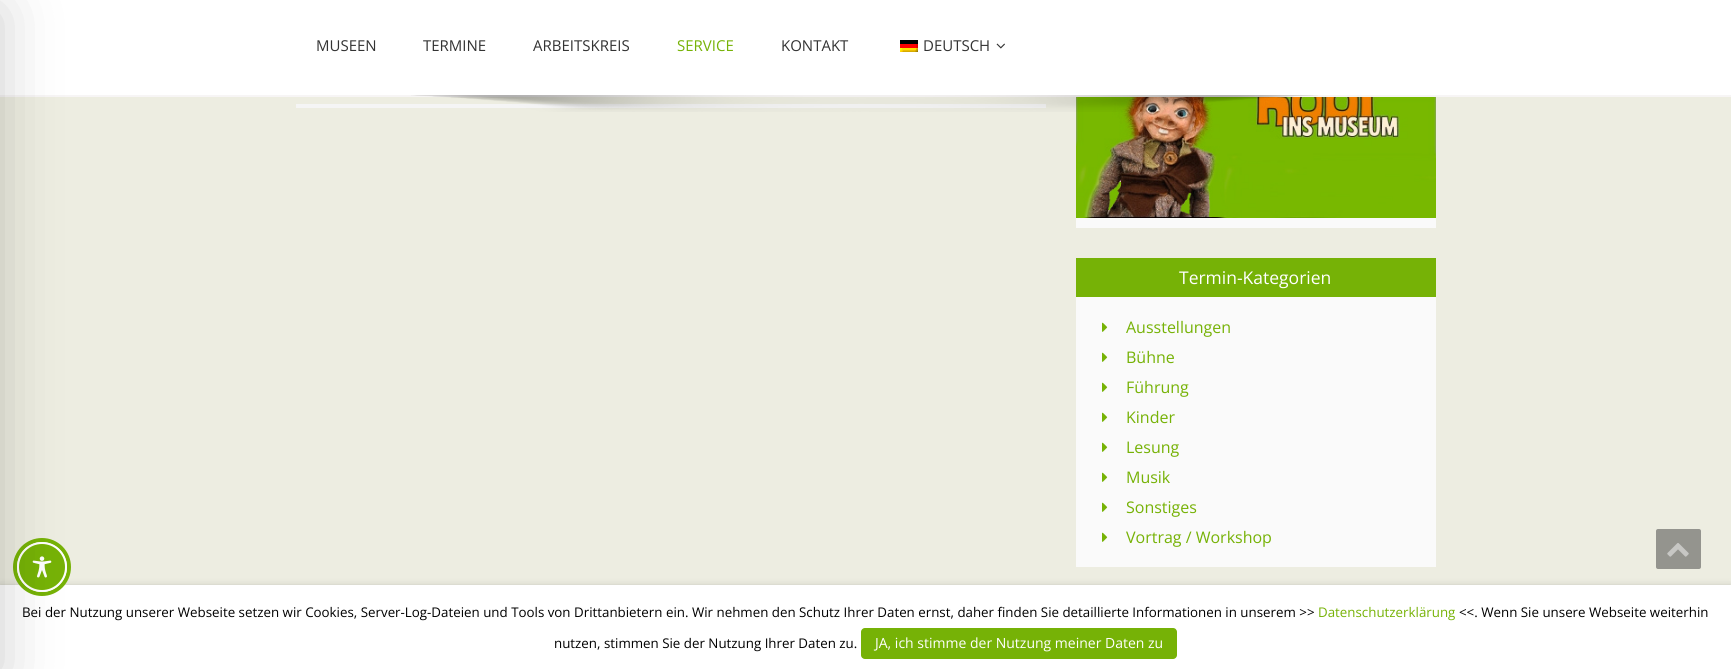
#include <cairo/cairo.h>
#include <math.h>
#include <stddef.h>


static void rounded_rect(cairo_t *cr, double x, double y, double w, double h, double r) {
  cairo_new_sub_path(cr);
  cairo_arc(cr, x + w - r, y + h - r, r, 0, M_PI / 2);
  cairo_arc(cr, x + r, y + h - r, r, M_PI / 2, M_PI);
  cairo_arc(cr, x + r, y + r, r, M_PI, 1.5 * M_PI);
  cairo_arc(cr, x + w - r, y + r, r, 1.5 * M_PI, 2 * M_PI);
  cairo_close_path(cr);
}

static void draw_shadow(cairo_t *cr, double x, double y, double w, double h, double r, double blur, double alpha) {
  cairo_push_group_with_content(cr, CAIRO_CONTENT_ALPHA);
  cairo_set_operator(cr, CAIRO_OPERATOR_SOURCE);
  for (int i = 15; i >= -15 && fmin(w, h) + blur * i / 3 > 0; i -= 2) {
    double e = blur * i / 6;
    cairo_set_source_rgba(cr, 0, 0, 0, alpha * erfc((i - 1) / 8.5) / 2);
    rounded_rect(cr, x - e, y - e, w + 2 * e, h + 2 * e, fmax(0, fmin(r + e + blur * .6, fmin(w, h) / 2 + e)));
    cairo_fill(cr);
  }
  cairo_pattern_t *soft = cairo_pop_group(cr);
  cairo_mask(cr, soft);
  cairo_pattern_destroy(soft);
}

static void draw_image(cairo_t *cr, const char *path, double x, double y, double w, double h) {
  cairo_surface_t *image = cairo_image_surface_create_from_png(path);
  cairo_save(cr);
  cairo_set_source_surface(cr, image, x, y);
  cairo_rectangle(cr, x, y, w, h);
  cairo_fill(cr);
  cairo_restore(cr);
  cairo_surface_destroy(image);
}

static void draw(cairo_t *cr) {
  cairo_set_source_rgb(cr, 237 / 255.0, 237 / 255.0, 225 / 255.0);
  cairo_paint(cr);
  cairo_set_source_rgb(cr, 1, 1, 1);
  cairo_rectangle(cr, 0, 0, 1731, 95);
  cairo_fill(cr);
  cairo_set_source_rgb(cr, 247 / 255.0, 245 / 255.0, 245 / 255.0);
  cairo_rectangle(cr, 0, 95, 1731, 2);
  cairo_fill(cr);
  cairo_set_source_rgb(cr, 0, 0, 0);
  draw_shadow(cr, 0, 590, 1731, 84, 0, 5, 0.5);
  cairo_set_source_rgb(cr, 1, 1, 1);
  cairo_rectangle(cr, 0, 585, 1731, 84);
  cairo_fill(cr);
  cairo_arc(cr, 42, 567, 27, 0, 2 * M_PI);
  cairo_set_source_rgb(cr, 118 / 255.0, 178 / 255.0, 6 / 255.0);
  cairo_set_line_width(cr, 4);
  cairo_stroke(cr);
  cairo_arc(cr, 42, 567, 24, 0, 2 * M_PI);
  cairo_fill_preserve(cr);
  cairo_set_source_rgb(cr, 1, 1, 1);
  cairo_set_line_width(cr, 2);
  cairo_stroke(cr);
  draw_image(cr, "images/7.png", 32, 556, 20, 22);
  cairo_set_source_rgb(cr, 0, 0, 0);
  draw_shadow(cr, -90, 10, 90, 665, 0, 30, 0.2);
  draw_image(cr, "images/1.png", 900, 40, 18, 12);
  draw_image(cr, "images/2.png", 996, 43, 9, 6);
  cairo_set_source_rgb(cr, 245 / 255.0, 245 / 255.0, 245 / 255.0);
  cairo_rectangle(cr, 296, 104, 750, 4);
  cairo_fill(cr);
  draw_image(cr, "images/4.png", 1076, 97, 360, 121);
  draw_image(cr, "images/3.png", 411, 95, 907, 17);
  cairo_set_source_rgb(cr, 250 / 255.0, 250 / 255.0, 250 / 255.0);
  cairo_rectangle(cr, 1076, 218, 360, 10);
  cairo_fill(cr);
  cairo_rectangle(cr, 1076, 297, 360, 270);
  cairo_fill(cr);
  cairo_set_source_rgb(cr, 118 / 255.0, 178 / 255.0, 6 / 255.0);
  cairo_rectangle(cr, 1076, 258, 360, 39);
  cairo_fill(cr);
  draw_image(cr, "images/5.png", 1102, 322, 6, 10);
  draw_image(cr, "images/5.png", 1102, 352, 6, 10);
  draw_image(cr, "images/5.png", 1102, 382, 6, 10);
  draw_image(cr, "images/5.png", 1102, 412, 6, 10);
  draw_image(cr, "images/5.png", 1102, 442, 6, 10);
  draw_image(cr, "images/5.png", 1102, 472, 6, 10);
  draw_image(cr, "images/5.png", 1102, 502, 6, 10);
  draw_image(cr, "images/5.png", 1102, 532, 6, 10);
  cairo_set_source_rgb(cr, 148 / 255.0, 148 / 255.0, 142 / 255.0);
  rounded_rect(cr, 1656, 529, 45, 40, 2);
  cairo_fill(cr);
  draw_image(cr, "images/6.png", 1667, 543, 22, 14);
  cairo_set_source_rgb(cr, 118 / 255.0, 178 / 255.0, 6 / 255.0);
  rounded_rect(cr, 861, 628, 316, 31, 4);
  cairo_fill(cr);
  cairo_select_font_face(cr, "Open Sans", CAIRO_FONT_SLANT_NORMAL, CAIRO_FONT_WEIGHT_NORMAL);
  cairo_set_font_size(cr, 15);
  cairo_set_source_rgb(cr, 51 / 255.0, 51 / 255.0, 51 / 255.0);
  cairo_move_to(cr, 316, 51);
  cairo_show_text(cr, "MUSEEN");
  cairo_move_to(cr, 423, 51);
  cairo_show_text(cr, "TERMINE");
  cairo_move_to(cr, 533, 51);
  cairo_show_text(cr, "ARBEITSKREIS");
  cairo_set_source_rgb(cr, 118 / 255.0, 178 / 255.0, 6 / 255.0);
  cairo_move_to(cr, 677, 51);
  cairo_show_text(cr, "SERVICE");
  cairo_set_source_rgb(cr, 51 / 255.0, 51 / 255.0, 51 / 255.0);
  cairo_move_to(cr, 781, 51);
  cairo_show_text(cr, "KONTAKT");
  cairo_move_to(cr, 923, 51);
  cairo_show_text(cr, "DEUTSCH");
  cairo_set_font_size(cr, 17.5);
  cairo_set_source_rgb(cr, 1, 1, 1);
  cairo_move_to(cr, 1179, 284);
  cairo_show_text(cr, "Termin-Kategorien");
  cairo_set_font_size(cr, 16);
  cairo_set_source_rgb(cr, 118 / 255.0, 178 / 255.0, 6 / 255.0);
  cairo_move_to(cr, 1126, 333);
  cairo_show_text(cr, "Ausstellungen");
  cairo_move_to(cr, 1126, 363);
  cairo_show_text(cr, "Bühne");
  cairo_move_to(cr, 1126, 393);
  cairo_show_text(cr, "Führung");
  cairo_move_to(cr, 1126, 423);
  cairo_show_text(cr, "Kinder");
  cairo_move_to(cr, 1126, 453);
  cairo_show_text(cr, "Lesung");
  cairo_move_to(cr, 1126, 483);
  cairo_show_text(cr, "Musik");
  cairo_move_to(cr, 1126, 513);
  cairo_show_text(cr, "Sonstiges");
  cairo_move_to(cr, 1126, 543);
  cairo_show_text(cr, "Vortrag / Workshop");
  cairo_set_font_size(cr, 13.33);
  cairo_set_source_rgb(cr, 0, 0, 0);
  cairo_move_to(cr, 22, 617);
  cairo_show_text(cr, "Bei der Nutzung unserer Webseite setzen wir Cookies, Server-Log-Dateien und Tools von Drittanbietern ein. Wir nehmen den Schutz Ihrer Daten ernst, daher finden Sie detaillierte Informationen in unserem >>");
  cairo_set_source_rgb(cr, 118 / 255.0, 178 / 255.0, 6 / 255.0);
  cairo_move_to(cr, 1318, 617);
  cairo_show_text(cr, "Datenschutzerklärung");
  cairo_set_source_rgb(cr, 0, 0, 0);
  cairo_move_to(cr, 1459, 617);
  cairo_show_text(cr, "<<. Wenn Sie unsere Webseite weiterhin");
  cairo_move_to(cr, 554, 648);
  cairo_show_text(cr, "nutzen, stimmen Sie der Nutzung Ihrer Daten zu.");
  cairo_set_font_size(cr, 14);
  cairo_set_source_rgb(cr, 1, 1, 1);
  cairo_move_to(cr, 875, 648);
  cairo_show_text(cr, "JA, ich stimme der Nutzung meiner Daten zu");
}

int main(void) {
  cairo_surface_t *surface = cairo_image_surface_create(CAIRO_FORMAT_RGB24, 1731, 669);
  cairo_t *cr = cairo_create(surface);
  cairo_font_options_t *options = cairo_font_options_create();
  cairo_font_options_set_hint_metrics(options, CAIRO_HINT_METRICS_OFF);
  cairo_font_options_set_hint_style(options, CAIRO_HINT_STYLE_NONE);
  cairo_set_font_options(cr, options);
  cairo_set_miter_limit(cr, 4);
  draw(cr);
  cairo_surface_write_to_png(surface, "out.png");
  cairo_font_options_destroy(options);
  cairo_destroy(cr);
  cairo_surface_destroy(surface);
  return 0;
}
